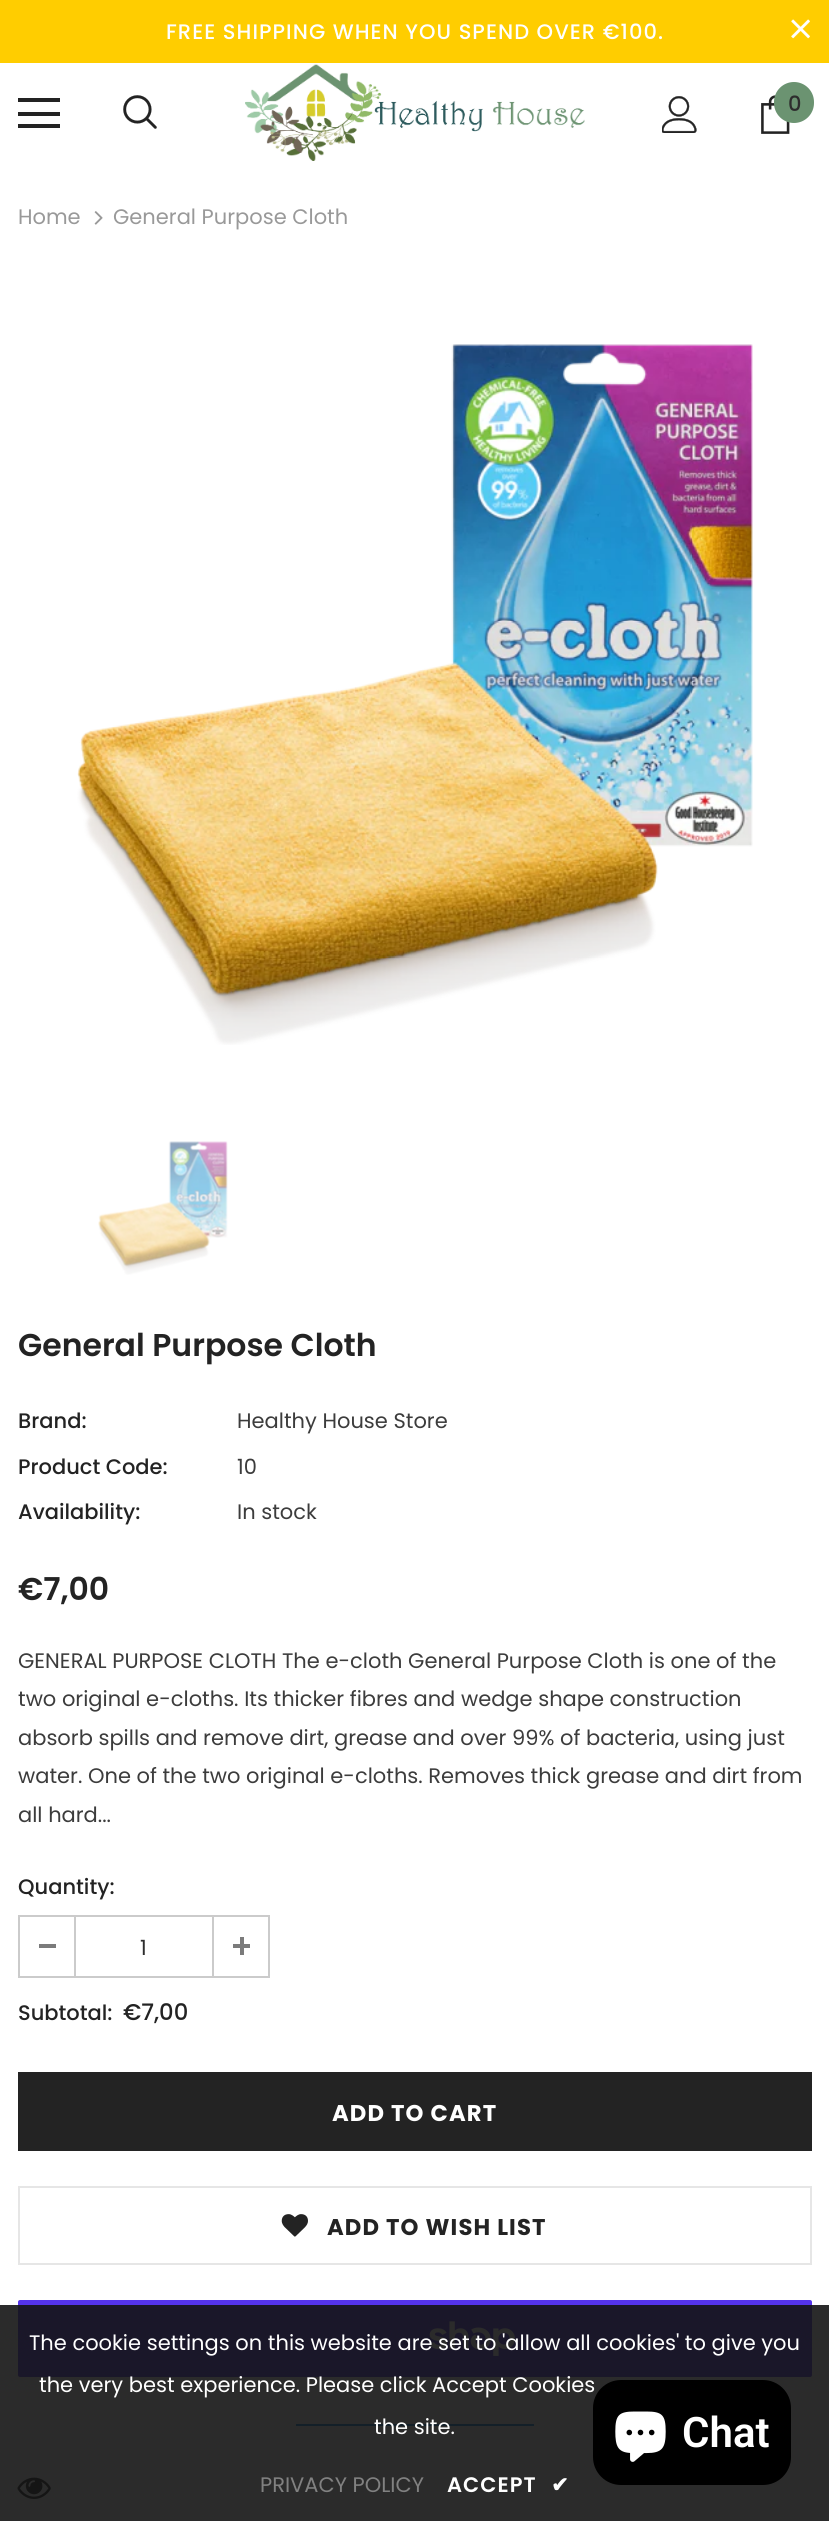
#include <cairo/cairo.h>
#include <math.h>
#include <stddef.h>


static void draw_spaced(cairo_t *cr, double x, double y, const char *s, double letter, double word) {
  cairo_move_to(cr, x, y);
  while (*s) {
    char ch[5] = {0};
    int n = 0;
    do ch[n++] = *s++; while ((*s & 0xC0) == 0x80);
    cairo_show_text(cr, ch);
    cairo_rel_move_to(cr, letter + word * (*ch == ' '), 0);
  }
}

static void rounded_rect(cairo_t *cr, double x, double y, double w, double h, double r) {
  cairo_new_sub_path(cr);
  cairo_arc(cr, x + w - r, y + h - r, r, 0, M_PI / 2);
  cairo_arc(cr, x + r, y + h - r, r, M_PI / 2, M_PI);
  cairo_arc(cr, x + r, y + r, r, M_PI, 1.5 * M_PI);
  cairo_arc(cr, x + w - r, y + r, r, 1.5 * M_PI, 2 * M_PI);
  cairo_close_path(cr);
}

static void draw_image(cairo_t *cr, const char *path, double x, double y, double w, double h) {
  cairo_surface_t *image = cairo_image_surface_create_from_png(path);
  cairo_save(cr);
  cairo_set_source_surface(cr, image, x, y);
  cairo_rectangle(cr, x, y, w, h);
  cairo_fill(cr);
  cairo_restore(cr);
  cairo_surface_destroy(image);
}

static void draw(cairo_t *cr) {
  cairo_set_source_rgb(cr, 1, 1, 1);
  cairo_paint(cr);
  cairo_set_source_rgb(cr, 1, 205 / 255.0, 0);
  cairo_rectangle(cr, 0, 0, 829, 63);
  cairo_fill(cr);
  draw_image(cr, "images/1.png", 791, 19, 19, 20);
  cairo_set_source_rgb(cr, 35 / 255.0, 35 / 255.0, 35 / 255.0);
  cairo_rectangle(cr, 18, 98, 42, 4);
  cairo_fill(cr);
  cairo_rectangle(cr, 18, 112, 42, 4);
  cairo_fill(cr);
  cairo_rectangle(cr, 18, 124, 42, 4);
  cairo_fill(cr);
  draw_image(cr, "images/2.png", 123, 95, 34, 34);
  draw_image(cr, "images/3.png", 245, 64, 340, 97);
  draw_image(cr, "images/4.png", 662, 96, 35, 37);
  draw_image(cr, "images/5.png", 761, 95, 29, 39);
  cairo_set_source_rgb(cr, 107 / 255.0, 147 / 255.0, 113 / 255.0);
  rounded_rect(cr, 774, 82, 40, 41, 20);
  cairo_fill(cr);
  draw_image(cr, "images/6.png", 94, 211, 9, 14);
  draw_image(cr, "images/7.png", 77, 344, 676, 701);
  draw_image(cr, "images/8.png", 98, 1141, 130, 134);
  cairo_rectangle(cr, 19, 1916, 250, 61);
  cairo_set_source_rgb(cr, 203 / 255.0, 203 / 255.0, 203 / 255.0);
  cairo_stroke(cr);
  cairo_rectangle(cr, 74, 1916, 2, 60);
  cairo_fill(cr);
  cairo_set_source_rgb(cr, 123 / 255.0, 123 / 255.0, 123 / 255.0);
  cairo_rectangle(cr, 39, 1944, 17, 4);
  cairo_fill(cr);
  cairo_set_source_rgb(cr, 203 / 255.0, 203 / 255.0, 203 / 255.0);
  cairo_rectangle(cr, 212, 1916, 2, 60);
  cairo_fill(cr);
  cairo_set_source_rgb(cr, 123 / 255.0, 123 / 255.0, 123 / 255.0);
  cairo_rectangle(cr, 233, 1944, 17, 4);
  cairo_fill(cr);
  cairo_rectangle(cr, 240, 1937, 4, 18);
  cairo_fill(cr);
  cairo_set_source_rgb(cr, 35 / 255.0, 35 / 255.0, 35 / 255.0);
  cairo_rectangle(cr, 18, 2072, 794, 79);
  cairo_fill(cr);
  cairo_rectangle(cr, 19, 2187, 792, 77);
  cairo_set_source_rgb(cr, 230 / 255.0, 230 / 255.0, 230 / 255.0);
  cairo_stroke(cr);
  draw_image(cr, "images/9.png", 281, 2214, 27, 23);
  cairo_set_source_rgb(cr, 84 / 255.0, 51 / 255.0, 235 / 255.0);
  rounded_rect(cr, 18, 2300, 794, 77, 2);
  cairo_fill(cr);
  draw_image(cr, "images/10.png", 429, 2321, 86, 35);
  cairo_set_source_rgb(cr, 6 / 255.0, 136 / 255.0, 226 / 255.0);
  cairo_rectangle(cr, 296, 2424, 238, 2);
  cairo_fill(cr);
  draw_image(cr, "images/11.png", 17, 2477, 34, 22);
  cairo_set_source_rgba(cr, 20 / 255.0, 20 / 255.0, 20 / 255.0, 0.9);
  cairo_rectangle(cr, 0, 2305, 829, 216);
  cairo_fill(cr);
  cairo_select_font_face(cr, "Poppins Medium", CAIRO_FONT_SLANT_NORMAL, CAIRO_FONT_WEIGHT_NORMAL);
  cairo_set_font_size(cr, 21);
  cairo_set_source_rgb(cr, 1, 1, 1);
  draw_spaced(cr, 166, 39, "FREE SHIPPING WHEN YOU SPEND OVER €100.", 1.05, 0);
  cairo_set_source_rgb(cr, 45 / 255.0, 45 / 255.0, 45 / 255.0);
  cairo_move_to(cr, 788, 111);
  cairo_show_text(cr, "0");
  cairo_select_font_face(cr, "Poppins", CAIRO_FONT_SLANT_NORMAL, CAIRO_FONT_WEIGHT_NORMAL);
  cairo_set_source_rgb(cr, 153 / 255.0, 153 / 255.0, 153 / 255.0);
  cairo_move_to(cr, 18, 224);
  cairo_show_text(cr, "Home");
  cairo_move_to(cr, 113, 224);
  cairo_show_text(cr, "General Purpose Cloth");
  cairo_select_font_face(cr, "Poppins SemiBold", CAIRO_FONT_SLANT_NORMAL, CAIRO_FONT_WEIGHT_NORMAL);
  cairo_set_font_size(cr, 31.5);
  cairo_set_source_rgb(cr, 35 / 255.0, 35 / 255.0, 35 / 255.0);
  cairo_move_to(cr, 18, 1356);
  cairo_show_text(cr, "General Purpose Cloth");
  cairo_select_font_face(cr, "Poppins Medium", CAIRO_FONT_SLANT_NORMAL, CAIRO_FONT_WEIGHT_NORMAL);
  cairo_set_font_size(cr, 21);
  cairo_move_to(cr, 18, 1428);
  cairo_show_text(cr, "Brand:");
  cairo_select_font_face(cr, "Poppins", CAIRO_FONT_SLANT_NORMAL, CAIRO_FONT_WEIGHT_NORMAL);
  cairo_set_source_rgb(cr, 60 / 255.0, 60 / 255.0, 60 / 255.0);
  cairo_move_to(cr, 237, 1428);
  cairo_show_text(cr, "Healthy House Store");
  cairo_select_font_face(cr, "Poppins Medium", CAIRO_FONT_SLANT_NORMAL, CAIRO_FONT_WEIGHT_NORMAL);
  cairo_set_source_rgb(cr, 35 / 255.0, 35 / 255.0, 35 / 255.0);
  cairo_move_to(cr, 18, 1474);
  cairo_show_text(cr, "Product Code:");
  cairo_select_font_face(cr, "Poppins", CAIRO_FONT_SLANT_NORMAL, CAIRO_FONT_WEIGHT_NORMAL);
  cairo_set_source_rgb(cr, 60 / 255.0, 60 / 255.0, 60 / 255.0);
  cairo_move_to(cr, 237, 1474);
  cairo_show_text(cr, "10");
  cairo_select_font_face(cr, "Poppins Medium", CAIRO_FONT_SLANT_NORMAL, CAIRO_FONT_WEIGHT_NORMAL);
  cairo_set_source_rgb(cr, 35 / 255.0, 35 / 255.0, 35 / 255.0);
  cairo_move_to(cr, 18, 1519);
  cairo_show_text(cr, "Availability:");
  cairo_select_font_face(cr, "Poppins", CAIRO_FONT_SLANT_NORMAL, CAIRO_FONT_WEIGHT_NORMAL);
  cairo_set_source_rgb(cr, 60 / 255.0, 60 / 255.0, 60 / 255.0);
  cairo_move_to(cr, 237, 1519);
  cairo_show_text(cr, "In stock");
  cairo_select_font_face(cr, "Poppins SemiBold", CAIRO_FONT_SLANT_NORMAL, CAIRO_FONT_WEIGHT_NORMAL);
  cairo_set_font_size(cr, 31.5);
  cairo_set_source_rgb(cr, 35 / 255.0, 35 / 255.0, 35 / 255.0);
  cairo_move_to(cr, 18, 1600);
  cairo_show_text(cr, "€7,00");
  cairo_select_font_face(cr, "Poppins", CAIRO_FONT_SLANT_NORMAL, CAIRO_FONT_WEIGHT_NORMAL);
  cairo_set_font_size(cr, 21);
  cairo_set_source_rgb(cr, 60 / 255.0, 60 / 255.0, 60 / 255.0);
  cairo_move_to(cr, 18, 1668);
  cairo_show_text(cr, "GENERAL PURPOSE CLOTH The e-cloth General Purpose Cloth is one of the");
  cairo_move_to(cr, 18, 1706);
  cairo_show_text(cr, "two original e-cloths. Its thicker fibres and wedge shape construction");
  cairo_move_to(cr, 18, 1745);
  cairo_show_text(cr, "absorb spills and remove dirt, grease and over 99% of bacteria, using just");
  cairo_move_to(cr, 18, 1783);
  cairo_show_text(cr, "water. One of the two original e-cloths. Removes thick grease and dirt from");
  cairo_move_to(cr, 18, 1822);
  cairo_show_text(cr, "all hard...");
  cairo_select_font_face(cr, "Poppins Medium", CAIRO_FONT_SLANT_NORMAL, CAIRO_FONT_WEIGHT_NORMAL);
  cairo_set_source_rgb(cr, 35 / 255.0, 35 / 255.0, 35 / 255.0);
  cairo_move_to(cr, 18, 1894);
  cairo_show_text(cr, "Quantity:");
  cairo_select_font_face(cr, "Poppins", CAIRO_FONT_SLANT_NORMAL, CAIRO_FONT_WEIGHT_NORMAL);
  cairo_set_source_rgb(cr, 45 / 255.0, 45 / 255.0, 45 / 255.0);
  cairo_move_to(cr, 140, 1955);
  cairo_show_text(cr, "1");
  cairo_select_font_face(cr, "Poppins Medium", CAIRO_FONT_SLANT_NORMAL, CAIRO_FONT_WEIGHT_NORMAL);
  cairo_set_source_rgb(cr, 35 / 255.0, 35 / 255.0, 35 / 255.0);
  cairo_move_to(cr, 18, 2020);
  cairo_show_text(cr, "Subtotal:");
  cairo_set_font_size(cr, 22.75);
  cairo_move_to(cr, 123, 2020);
  cairo_show_text(cr, "€7,00");
  cairo_select_font_face(cr, "Poppins", CAIRO_FONT_SLANT_NORMAL, CAIRO_FONT_WEIGHT_BOLD);
  cairo_set_source_rgb(cr, 1, 1, 1);
  draw_spaced(cr, 332, 2121, "ADD TO CART", 1.1, 0);
  cairo_set_source_rgb(cr, 35 / 255.0, 35 / 255.0, 35 / 255.0);
  draw_spaced(cr, 327, 2235, "ADD TO WISH LIST", 1.1, 0);
  cairo_select_font_face(cr, "Poppins", CAIRO_FONT_SLANT_NORMAL, CAIRO_FONT_WEIGHT_NORMAL);
  cairo_set_font_size(cr, 21);
  cairo_set_source_rgb(cr, 1, 1, 1);
  cairo_move_to(cr, 29, 2350);
  cairo_show_text(cr, "The cookie settings on this website are set to 'allow all cookies' to give you");
  cairo_move_to(cr, 39, 2392);
  cairo_show_text(cr, "the very best experience. Please click Accept Cookies");
  cairo_move_to(cr, 374, 2434);
  cairo_show_text(cr, "the site.");
  cairo_set_source_rgb(cr, 129 / 255.0, 129 / 255.0, 129 / 255.0);
  cairo_move_to(cr, 260, 2492);
  cairo_show_text(cr, "PRIVACY POLICY");
  cairo_select_font_face(cr, "Poppins SemiBold", CAIRO_FONT_SLANT_NORMAL, CAIRO_FONT_WEIGHT_NORMAL);
  cairo_set_source_rgb(cr, 1, 1, 1);
  draw_spaced(cr, 447, 2492, "ACCEPT", 1.05, 0);
  cairo_select_font_face(cr, "DejaVu Sans", CAIRO_FONT_SLANT_NORMAL, CAIRO_FONT_WEIGHT_BOLD);
  draw_spaced(cr, 551, 2492, "✔", 1.05, 0);
  cairo_set_source_rgb(cr, 0, 0, 0);
  rounded_rect(cr, 593, 2380, 198, 105, 28);
  cairo_fill(cr);
  draw_image(cr, "images/12.png", 615, 2411, 51, 51);
  cairo_select_font_face(cr, "Roboto SemiBold", CAIRO_FONT_SLANT_NORMAL, CAIRO_FONT_WEIGHT_NORMAL);
  cairo_set_font_size(cr, 42);
  cairo_set_source_rgb(cr, 1, 1, 1);
  cairo_move_to(cr, 682, 2447);
  cairo_show_text(cr, "Chat");
}

int main(void) {
  cairo_surface_t *surface = cairo_image_surface_create(CAIRO_FORMAT_RGB24, 829, 2521);
  cairo_t *cr = cairo_create(surface);
  cairo_font_options_t *options = cairo_font_options_create();
  cairo_font_options_set_hint_metrics(options, CAIRO_HINT_METRICS_OFF);
  cairo_font_options_set_hint_style(options, CAIRO_HINT_STYLE_NONE);
  cairo_set_font_options(cr, options);
  cairo_set_miter_limit(cr, 4);
  draw(cr);
  cairo_surface_write_to_png(surface, "out.png");
  cairo_font_options_destroy(options);
  cairo_destroy(cr);
  cairo_surface_destroy(surface);
  return 0;
}
